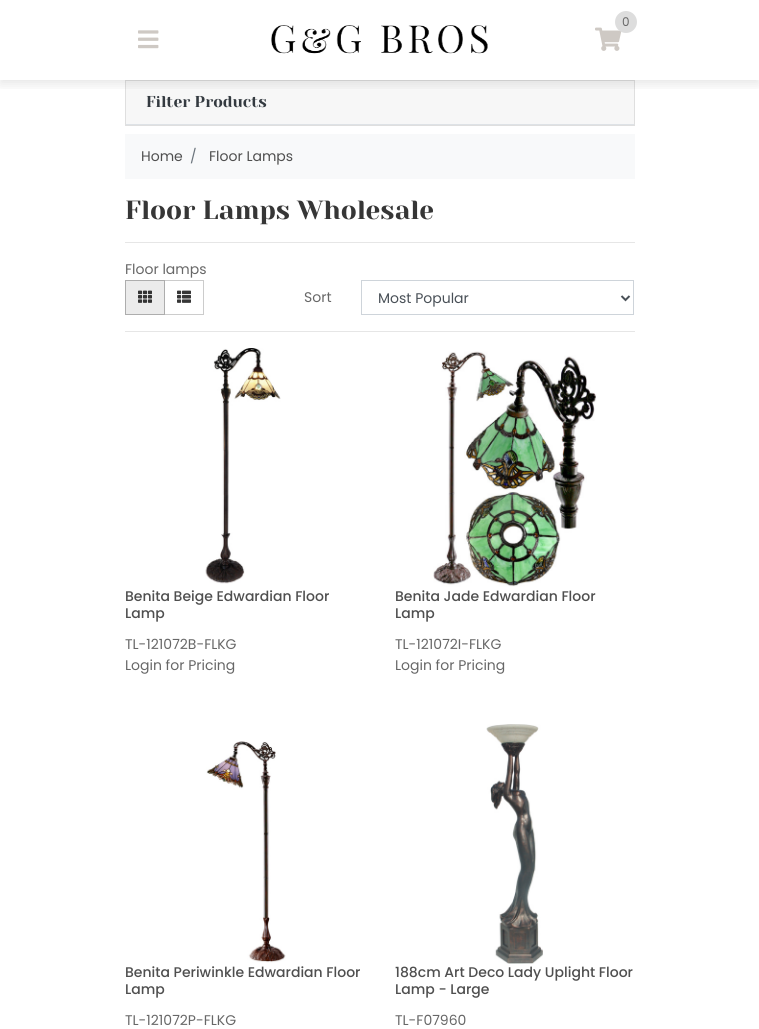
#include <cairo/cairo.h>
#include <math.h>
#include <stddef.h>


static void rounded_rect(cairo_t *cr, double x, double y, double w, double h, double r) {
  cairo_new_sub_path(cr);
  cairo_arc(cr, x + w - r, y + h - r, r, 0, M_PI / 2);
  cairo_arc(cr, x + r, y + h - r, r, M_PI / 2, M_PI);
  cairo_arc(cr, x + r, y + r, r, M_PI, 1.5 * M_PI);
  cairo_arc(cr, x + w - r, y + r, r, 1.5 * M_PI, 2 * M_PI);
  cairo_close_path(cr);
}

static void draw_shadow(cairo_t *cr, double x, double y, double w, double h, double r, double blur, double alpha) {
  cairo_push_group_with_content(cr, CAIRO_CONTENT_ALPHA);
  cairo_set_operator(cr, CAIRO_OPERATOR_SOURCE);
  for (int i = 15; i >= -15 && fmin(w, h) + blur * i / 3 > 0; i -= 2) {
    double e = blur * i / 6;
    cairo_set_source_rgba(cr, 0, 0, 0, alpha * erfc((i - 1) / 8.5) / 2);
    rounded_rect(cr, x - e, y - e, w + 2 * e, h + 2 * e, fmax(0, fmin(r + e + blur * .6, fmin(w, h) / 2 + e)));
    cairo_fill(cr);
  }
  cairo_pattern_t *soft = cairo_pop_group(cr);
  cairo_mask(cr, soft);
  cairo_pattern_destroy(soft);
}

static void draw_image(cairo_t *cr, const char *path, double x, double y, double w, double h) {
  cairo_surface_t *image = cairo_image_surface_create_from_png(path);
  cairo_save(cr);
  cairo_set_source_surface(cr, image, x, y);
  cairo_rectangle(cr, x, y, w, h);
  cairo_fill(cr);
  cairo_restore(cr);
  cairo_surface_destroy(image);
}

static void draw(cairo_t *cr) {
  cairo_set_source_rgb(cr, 1, 1, 1);
  cairo_paint(cr);
  cairo_rectangle(cr, 125.5, 80.5, 509, 45);
  cairo_set_source_rgb(cr, 223 / 255.0, 223 / 255.0, 223 / 255.0);
  cairo_set_line_width(cr, 1);
  cairo_stroke(cr);
  cairo_set_source_rgb(cr, 247 / 255.0, 247 / 255.0, 247 / 255.0);
  cairo_rectangle(cr, 126, 81, 508, 43);
  cairo_fill(cr);
  cairo_save(cr);
  cairo_rectangle(cr, 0, 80, 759, 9);
  cairo_clip(cr);
  cairo_set_source_rgb(cr, 0, 0, 0);
  draw_shadow(cr, 0, 4, 759, 80, 0, 6, 0.1);
  cairo_restore(cr);
  draw_image(cr, "images/1.png", 595, 27, 27, 24);
  cairo_set_source_rgb(cr, 221 / 255.0, 221 / 255.0, 221 / 255.0);
  cairo_arc(cr, 626, 22, 11, 0, 2 * M_PI);
  cairo_fill(cr);
  draw_image(cr, "images/2.png", 138, 30, 21, 19);
  draw_image(cr, "images/3.png", 271, 25, 217, 29);
  cairo_set_source_rgb(cr, 222 / 255.0, 226 / 255.0, 230 / 255.0);
  cairo_rectangle(cr, 126, 124, 508, 1);
  cairo_fill(cr);
  cairo_set_source_rgb(cr, 248 / 255.0, 249 / 255.0, 250 / 255.0);
  cairo_rectangle(cr, 125, 134, 510, 45);
  cairo_fill(cr);
  cairo_set_source_rgb(cr, 230 / 255.0, 230 / 255.0, 230 / 255.0);
  cairo_rectangle(cr, 125, 242, 510, 1);
  cairo_fill(cr);
  cairo_rectangle(cr, 164.5, 280.5, 39, 34);
  cairo_set_source_rgb(cr, 204 / 255.0, 204 / 255.0, 204 / 255.0);
  cairo_stroke(cr);
  cairo_set_source_rgb(cr, 235 / 255.0, 235 / 255.0, 235 / 255.0);
  cairo_rectangle(cr, 125.5, 280.5, 39, 34);
  cairo_fill_preserve(cr);
  cairo_set_source_rgb(cr, 173 / 255.0, 173 / 255.0, 173 / 255.0);
  cairo_stroke(cr);
  draw_image(cr, "images/4.png", 138, 290, 14, 13);
  draw_image(cr, "images/5.png", 177, 290, 14, 13);
  cairo_rectangle(cr, 361.5, 280.5, 272, 34);
  cairo_set_source_rgb(cr, 206 / 255.0, 212 / 255.0, 218 / 255.0);
  cairo_stroke(cr);
  cairo_new_path(cr);
  cairo_move_to(cr, 621.5, 296);
  cairo_line_to(cr, 625.5, 300);
  cairo_line_to(cr, 629.5, 296);
  cairo_set_source_rgb(cr, 73 / 255.0, 80 / 255.0, 87 / 255.0);
  cairo_set_line_width(cr, 2);
  cairo_stroke(cr);
  cairo_set_source_rgb(cr, 230 / 255.0, 230 / 255.0, 230 / 255.0);
  cairo_rectangle(cr, 125, 331, 510, 1);
  cairo_fill(cr);
  draw_image(cr, "images/6.png", 205, 348, 76, 236);
  draw_image(cr, "images/7.png", 433, 351, 164, 236);
  draw_image(cr, "images/8.png", 206, 741, 80, 222);
  draw_image(cr, "images/9.png", 486, 724, 57, 240);
  cairo_select_font_face(cr, "Poppins", CAIRO_FONT_SLANT_NORMAL, CAIRO_FONT_WEIGHT_NORMAL);
  cairo_set_font_size(cr, 12);
  cairo_set_source_rgb(cr, 103 / 255.0, 103 / 255.0, 103 / 255.0);
  cairo_move_to(cr, 622, 26);
  cairo_show_text(cr, "0");
  cairo_select_font_face(cr, "Yeseva One", CAIRO_FONT_SLANT_NORMAL, CAIRO_FONT_WEIGHT_NORMAL);
  cairo_set_font_size(cr, 15.75);
  cairo_set_source_rgb(cr, 52 / 255.0, 58 / 255.0, 64 / 255.0);
  cairo_move_to(cr, 146, 107);
  cairo_show_text(cr, "Filter Products");
  cairo_select_font_face(cr, "Poppins", CAIRO_FONT_SLANT_NORMAL, CAIRO_FONT_WEIGHT_NORMAL);
  cairo_set_font_size(cr, 14);
  cairo_set_source_rgb(cr, 79 / 255.0, 79 / 255.0, 79 / 255.0);
  cairo_move_to(cr, 141, 161);
  cairo_show_text(cr, "Home");
  cairo_set_source_rgb(cr, 108 / 255.0, 117 / 255.0, 125 / 255.0);
  cairo_move_to(cr, 190, 161);
  cairo_show_text(cr, "/");
  cairo_set_source_rgb(cr, 79 / 255.0, 79 / 255.0, 79 / 255.0);
  cairo_move_to(cr, 209, 161);
  cairo_show_text(cr, "Floor Lamps");
  cairo_select_font_face(cr, "Yeseva One", CAIRO_FONT_SLANT_NORMAL, CAIRO_FONT_WEIGHT_NORMAL);
  cairo_set_font_size(cr, 26.25);
  cairo_set_source_rgb(cr, 54 / 255.0, 54 / 255.0, 54 / 255.0);
  cairo_move_to(cr, 125, 219);
  cairo_show_text(cr, "Floor Lamps Wholesale");
  cairo_select_font_face(cr, "Poppins", CAIRO_FONT_SLANT_NORMAL, CAIRO_FONT_WEIGHT_NORMAL);
  cairo_set_font_size(cr, 14);
  cairo_set_source_rgb(cr, 103 / 255.0, 103 / 255.0, 103 / 255.0);
  cairo_move_to(cr, 125, 274);
  cairo_show_text(cr, "Floor lamps");
  cairo_move_to(cr, 304, 302);
  cairo_show_text(cr, "Sort");
  cairo_set_source_rgb(cr, 73 / 255.0, 80 / 255.0, 87 / 255.0);
  cairo_move_to(cr, 378, 303);
  cairo_show_text(cr, "Most Popular");
  cairo_select_font_face(cr, "Poppins Medium", CAIRO_FONT_SLANT_NORMAL, CAIRO_FONT_WEIGHT_NORMAL);
  cairo_set_source_rgb(cr, 79 / 255.0, 79 / 255.0, 79 / 255.0);
  cairo_move_to(cr, 125, 601);
  cairo_show_text(cr, "Benita Beige Edwardian Floor");
  cairo_move_to(cr, 125, 618);
  cairo_show_text(cr, "Lamp");
  cairo_select_font_face(cr, "Poppins", CAIRO_FONT_SLANT_NORMAL, CAIRO_FONT_WEIGHT_NORMAL);
  cairo_set_source_rgb(cr, 103 / 255.0, 103 / 255.0, 103 / 255.0);
  cairo_move_to(cr, 125, 649);
  cairo_show_text(cr, "TL-121072B-FLKG");
  cairo_move_to(cr, 125, 670);
  cairo_show_text(cr, "Login for Pricing");
  cairo_select_font_face(cr, "Poppins Medium", CAIRO_FONT_SLANT_NORMAL, CAIRO_FONT_WEIGHT_NORMAL);
  cairo_set_source_rgb(cr, 79 / 255.0, 79 / 255.0, 79 / 255.0);
  cairo_move_to(cr, 395, 601);
  cairo_show_text(cr, "Benita Jade Edwardian Floor");
  cairo_move_to(cr, 395, 618);
  cairo_show_text(cr, "Lamp");
  cairo_select_font_face(cr, "Poppins", CAIRO_FONT_SLANT_NORMAL, CAIRO_FONT_WEIGHT_NORMAL);
  cairo_set_source_rgb(cr, 103 / 255.0, 103 / 255.0, 103 / 255.0);
  cairo_move_to(cr, 395, 649);
  cairo_show_text(cr, "TL-121072I-FLKG");
  cairo_move_to(cr, 395, 670);
  cairo_show_text(cr, "Login for Pricing");
  cairo_select_font_face(cr, "Poppins Medium", CAIRO_FONT_SLANT_NORMAL, CAIRO_FONT_WEIGHT_NORMAL);
  cairo_set_source_rgb(cr, 79 / 255.0, 79 / 255.0, 79 / 255.0);
  cairo_move_to(cr, 125, 977);
  cairo_show_text(cr, "Benita Periwinkle Edwardian Floor");
  cairo_move_to(cr, 125, 994);
  cairo_show_text(cr, "Lamp");
  cairo_select_font_face(cr, "Poppins", CAIRO_FONT_SLANT_NORMAL, CAIRO_FONT_WEIGHT_NORMAL);
  cairo_set_source_rgb(cr, 103 / 255.0, 103 / 255.0, 103 / 255.0);
  cairo_move_to(cr, 125, 1025);
  cairo_show_text(cr, "TL-121072P-FLKG");
  cairo_select_font_face(cr, "Poppins Medium", CAIRO_FONT_SLANT_NORMAL, CAIRO_FONT_WEIGHT_NORMAL);
  cairo_set_source_rgb(cr, 79 / 255.0, 79 / 255.0, 79 / 255.0);
  cairo_move_to(cr, 395, 977);
  cairo_show_text(cr, "188cm Art Deco Lady Uplight Floor");
  cairo_move_to(cr, 395, 994);
  cairo_show_text(cr, "Lamp - Large");
  cairo_select_font_face(cr, "Poppins", CAIRO_FONT_SLANT_NORMAL, CAIRO_FONT_WEIGHT_NORMAL);
  cairo_set_source_rgb(cr, 103 / 255.0, 103 / 255.0, 103 / 255.0);
  cairo_move_to(cr, 395, 1025);
  cairo_show_text(cr, "TL-F07960");
}

int main(void) {
  cairo_surface_t *surface = cairo_image_surface_create(CAIRO_FORMAT_RGB24, 759, 1029);
  cairo_t *cr = cairo_create(surface);
  cairo_font_options_t *options = cairo_font_options_create();
  cairo_font_options_set_hint_metrics(options, CAIRO_HINT_METRICS_OFF);
  cairo_font_options_set_hint_style(options, CAIRO_HINT_STYLE_NONE);
  cairo_set_font_options(cr, options);
  cairo_set_miter_limit(cr, 4);
  draw(cr);
  cairo_surface_write_to_png(surface, "out.png");
  cairo_font_options_destroy(options);
  cairo_destroy(cr);
  cairo_surface_destroy(surface);
  return 0;
}
